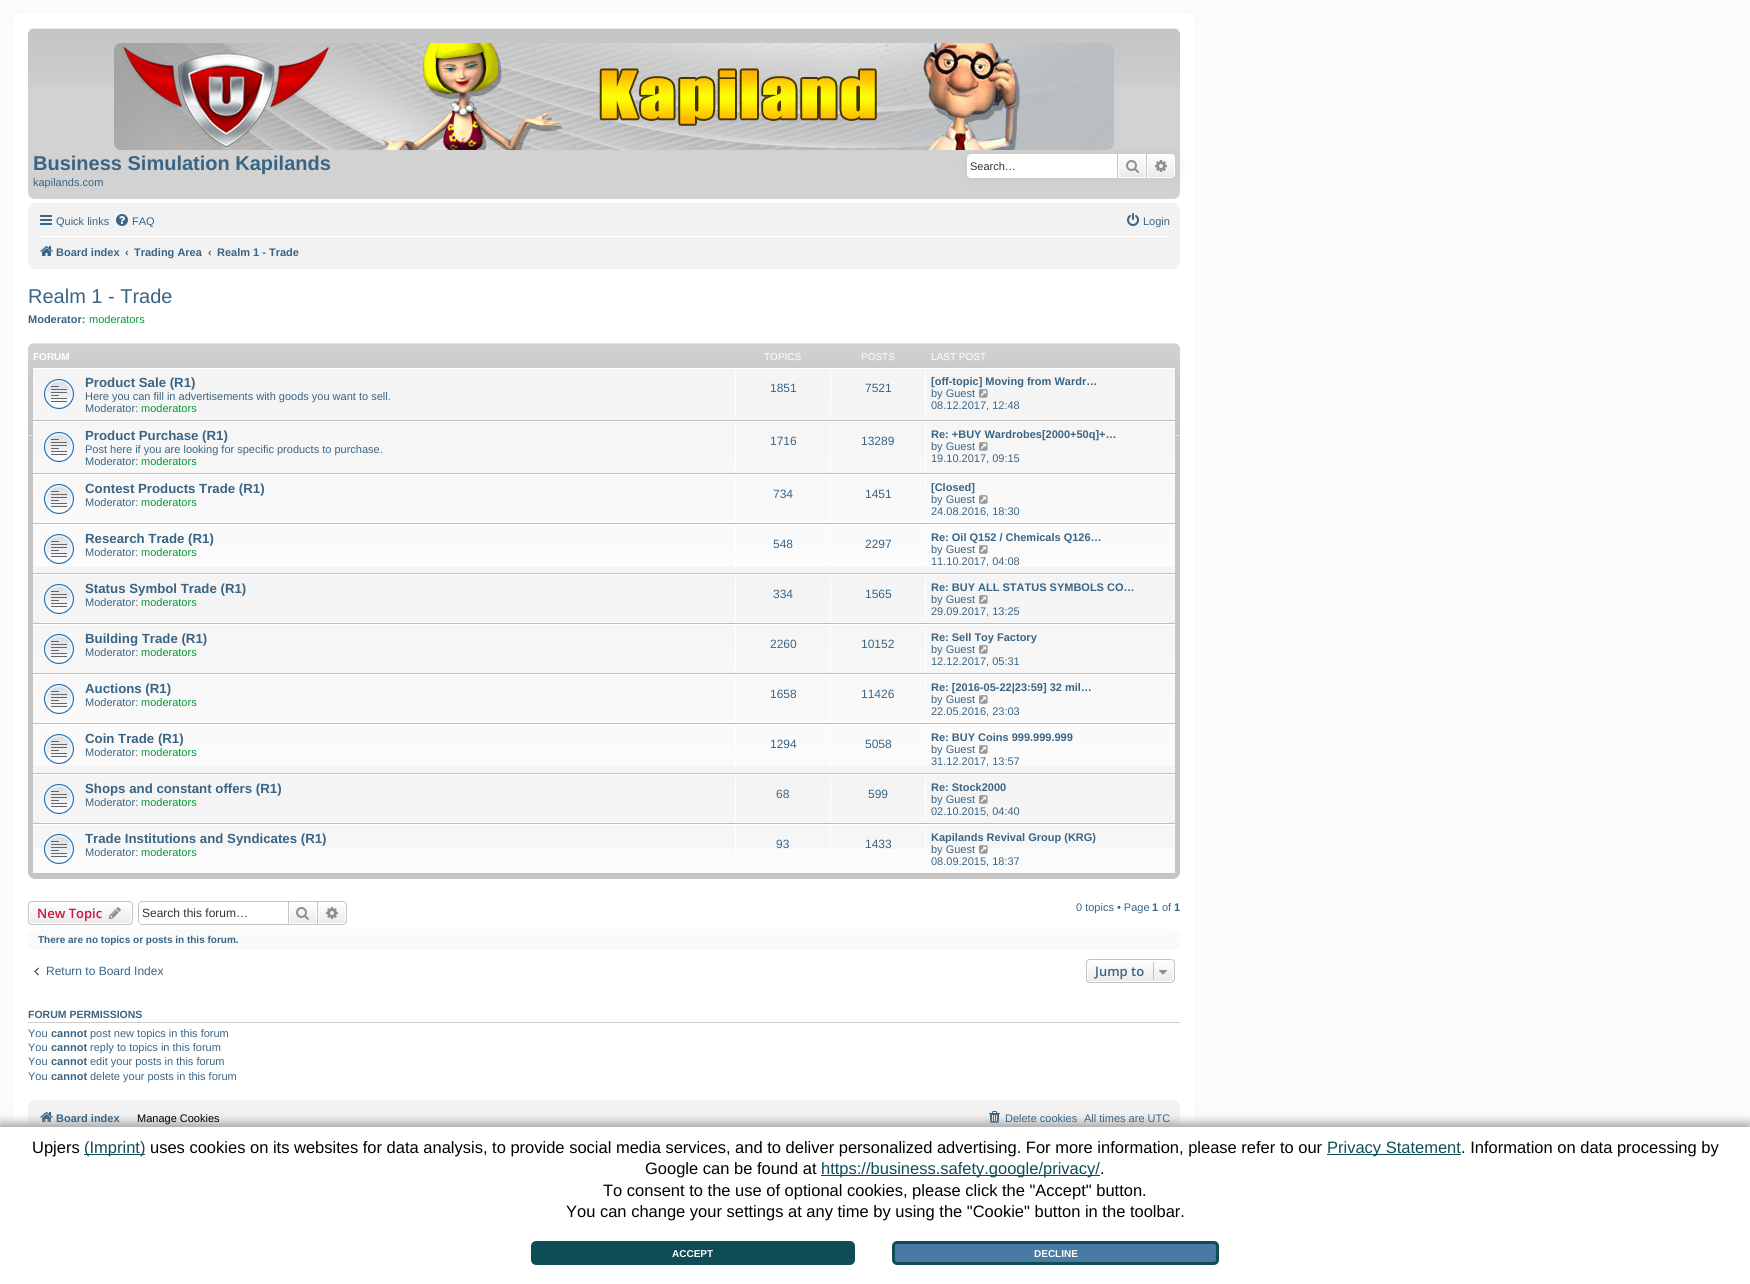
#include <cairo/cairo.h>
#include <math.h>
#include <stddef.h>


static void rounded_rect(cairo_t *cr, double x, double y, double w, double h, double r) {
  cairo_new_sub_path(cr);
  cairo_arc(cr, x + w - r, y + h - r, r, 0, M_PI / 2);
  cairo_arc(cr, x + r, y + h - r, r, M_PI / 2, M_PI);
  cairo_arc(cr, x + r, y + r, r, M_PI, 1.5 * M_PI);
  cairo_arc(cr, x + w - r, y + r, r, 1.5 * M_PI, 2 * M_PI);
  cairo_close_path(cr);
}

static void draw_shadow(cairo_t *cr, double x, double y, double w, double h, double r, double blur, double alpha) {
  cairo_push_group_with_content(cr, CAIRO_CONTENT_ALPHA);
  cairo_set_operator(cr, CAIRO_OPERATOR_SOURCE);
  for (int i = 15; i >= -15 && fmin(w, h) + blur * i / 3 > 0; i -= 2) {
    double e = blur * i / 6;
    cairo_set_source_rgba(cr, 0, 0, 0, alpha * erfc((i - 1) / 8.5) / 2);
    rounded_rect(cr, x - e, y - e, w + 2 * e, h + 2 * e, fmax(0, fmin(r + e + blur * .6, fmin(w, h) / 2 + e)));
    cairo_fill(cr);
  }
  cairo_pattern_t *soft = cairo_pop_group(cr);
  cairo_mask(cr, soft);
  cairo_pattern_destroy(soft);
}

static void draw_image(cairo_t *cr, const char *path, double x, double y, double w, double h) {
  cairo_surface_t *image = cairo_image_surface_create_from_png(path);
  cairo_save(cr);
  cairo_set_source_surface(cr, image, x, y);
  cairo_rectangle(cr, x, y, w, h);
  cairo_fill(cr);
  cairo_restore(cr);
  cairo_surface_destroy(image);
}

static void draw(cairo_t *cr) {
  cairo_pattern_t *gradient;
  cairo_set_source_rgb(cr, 252 / 255.0, 252 / 255.0, 252 / 255.0);
  cairo_paint(cr);
  cairo_set_source_rgb(cr, 1, 1, 1);
  rounded_rect(cr, 12.5, 12.5, 1183, 1194, 7.5);
  cairo_fill_preserve(cr);
  cairo_set_source_rgb(cr, 247 / 255.0, 247 / 255.0, 247 / 255.0);
  cairo_set_line_width(cr, 1);
  cairo_stroke(cr);
  cairo_set_source_rgb(cr, 210 / 255.0, 210 / 255.0, 210 / 255.0);
  rounded_rect(cr, 28, 28, 1152, 171, 7);
  cairo_fill(cr);
  draw_image(cr, "images/1.png", 28, 28, 1152, 59);
  cairo_set_source_rgb(cr, 197 / 255.0, 197 / 255.0, 197 / 255.0);
  draw_shadow(cr, 967, 154, 208, 24, 4, 5, 1);
  draw_image(cr, "images/2.png", 114, 43, 1000, 107);
  cairo_set_source_rgb(cr, 1, 1, 1);
  cairo_new_path(cr);
  cairo_move_to(cr, 971, 154);
  cairo_line_to(cr, 1117, 154);
  cairo_line_to(cr, 1117, 178);
  cairo_line_to(cr, 971, 178);
  cairo_curve_to(cr, 969, 178, 967, 176, 967, 174);
  cairo_line_to(cr, 967, 158);
  cairo_curve_to(cr, 967, 156, 969, 154, 971, 154);
  cairo_close_path(cr);
  cairo_fill(cr);
  gradient = cairo_pattern_create_linear(1132, 154, 1132, 178);
  cairo_pattern_add_color_stop_rgba(gradient, 0, 1, 1, 1, 1);
  cairo_pattern_add_color_stop_rgba(gradient, 1, 233 / 255.0, 233 / 255.0, 233 / 255.0, 1);
  cairo_set_source(cr, gradient);
  cairo_pattern_destroy(gradient);
  cairo_rectangle(cr, 1119, 155, 26, 22);
  cairo_fill(cr);
  cairo_rectangle(cr, 1118.5, 154.5, 27, 23);
  cairo_set_source_rgb(cr, 1, 1, 1);
  cairo_stroke(cr);
  cairo_set_source_rgb(cr, 199 / 255.0, 195 / 255.0, 191 / 255.0);
  cairo_rectangle(cr, 1146, 154, 1, 24);
  cairo_fill(cr);
  cairo_rectangle(cr, 1117, 154, 1, 24);
  cairo_fill(cr);
  draw_image(cr, "images/3.png", 1126, 160, 13, 13);
  gradient = cairo_pattern_create_linear(1161, 154, 1161, 178);
  cairo_pattern_add_color_stop_rgba(gradient, 0, 1, 1, 1, 1);
  cairo_pattern_add_color_stop_rgba(gradient, 1, 233 / 255.0, 233 / 255.0, 233 / 255.0, 1);
  cairo_set_source(cr, gradient);
  cairo_pattern_destroy(gradient);
  cairo_new_path(cr);
  cairo_move_to(cr, 1147.5, 154.5);
  cairo_line_to(cr, 1171, 154.5);
  cairo_curve_to(cr, 1173, 154.5, 1174.5, 156, 1174.5, 158);
  cairo_line_to(cr, 1174.5, 174);
  cairo_curve_to(cr, 1174.5, 176, 1173, 177.5, 1171, 177.5);
  cairo_line_to(cr, 1147.5, 177.5);
  cairo_close_path(cr);
  cairo_fill_preserve(cr);
  cairo_set_source_rgb(cr, 1, 1, 1);
  cairo_stroke(cr);
  draw_image(cr, "images/4.png", 1155, 160, 12, 12);
  cairo_set_source_rgb(cr, 242 / 255.0, 242 / 255.0, 242 / 255.0);
  rounded_rect(cr, 28, 203, 1152, 66, 7);
  cairo_fill(cr);
  draw_image(cr, "images/5.png", 40, 215, 12, 10);
  draw_image(cr, "images/6.png", 116, 214, 12, 12);
  draw_image(cr, "images/7.png", 1127, 213, 12, 13);
  cairo_set_source_rgb(cr, 1, 1, 1);
  cairo_rectangle(cr, 38, 236, 1132, 1);
  cairo_fill(cr);
  draw_image(cr, "images/8.png", 40, 246, 13, 10);
  cairo_set_source_rgb(cr, 197 / 255.0, 197 / 255.0, 197 / 255.0);
  rounded_rect(cr, 28, 343, 1152, 536, 7);
  cairo_fill(cr);
  draw_image(cr, "images/9.png", 28, 343, 1152, 93);
  cairo_set_source_rgb(cr, 251 / 255.0, 251 / 255.0, 251 / 255.0);
  cairo_rectangle(cr, 33, 849, 1142, 24);
  cairo_fill(cr);
  draw_image(cr, "images/10.png", 33, 369, 1142, 480);
  cairo_set_source_rgb(cr, 1, 1, 1);
  cairo_rectangle(cr, 33, 368, 1142, 1);
  cairo_fill(cr);
  cairo_set_source_rgb(cr, 191 / 255.0, 191 / 255.0, 191 / 255.0);
  cairo_rectangle(cr, 33, 420, 1142, 1);
  cairo_fill(cr);
  draw_image(cr, "images/11.png", 44, 379, 30, 30);
  cairo_set_source_rgb(cr, 1, 1, 1);
  cairo_rectangle(cr, 735, 371, 1, 47);
  cairo_fill(cr);
  cairo_rectangle(cr, 830, 371, 1, 47);
  cairo_fill(cr);
  cairo_rectangle(cr, 925, 371, 1, 47);
  cairo_fill(cr);
  draw_image(cr, "images/12.png", 979, 389, 9, 9);
  cairo_rectangle(cr, 33, 421, 1142, 1);
  cairo_fill(cr);
  cairo_set_source_rgb(cr, 191 / 255.0, 191 / 255.0, 191 / 255.0);
  cairo_rectangle(cr, 33, 473, 1142, 1);
  cairo_fill(cr);
  draw_image(cr, "images/13.png", 44, 432, 30, 30);
  cairo_set_source_rgb(cr, 1, 1, 1);
  cairo_rectangle(cr, 735, 424, 1, 47);
  cairo_fill(cr);
  cairo_rectangle(cr, 830, 424, 1, 47);
  cairo_fill(cr);
  cairo_rectangle(cr, 925, 424, 1, 47);
  cairo_fill(cr);
  draw_image(cr, "images/14.png", 979, 442, 9, 9);
  cairo_rectangle(cr, 33, 474, 1142, 1);
  cairo_fill(cr);
  cairo_set_source_rgb(cr, 191 / 255.0, 191 / 255.0, 191 / 255.0);
  cairo_rectangle(cr, 33, 523, 1142, 1);
  cairo_fill(cr);
  draw_image(cr, "images/15.png", 44, 484, 30, 30);
  cairo_set_source_rgb(cr, 1, 1, 1);
  cairo_rectangle(cr, 735, 477, 1, 44);
  cairo_fill(cr);
  cairo_rectangle(cr, 830, 477, 1, 44);
  cairo_fill(cr);
  cairo_rectangle(cr, 925, 477, 1, 44);
  cairo_fill(cr);
  draw_image(cr, "images/16.png", 979, 495, 9, 9);
  cairo_rectangle(cr, 33, 524, 1142, 1);
  cairo_fill(cr);
  cairo_set_source_rgb(cr, 191 / 255.0, 191 / 255.0, 191 / 255.0);
  cairo_rectangle(cr, 33, 573, 1142, 1);
  cairo_fill(cr);
  draw_image(cr, "images/17.png", 44, 534, 30, 30);
  cairo_set_source_rgb(cr, 1, 1, 1);
  cairo_rectangle(cr, 735, 527, 1, 44);
  cairo_fill(cr);
  cairo_rectangle(cr, 830, 527, 1, 44);
  cairo_fill(cr);
  cairo_rectangle(cr, 925, 527, 1, 44);
  cairo_fill(cr);
  draw_image(cr, "images/18.png", 979, 545, 9, 9);
  cairo_rectangle(cr, 33, 574, 1142, 1);
  cairo_fill(cr);
  cairo_set_source_rgb(cr, 191 / 255.0, 191 / 255.0, 191 / 255.0);
  cairo_rectangle(cr, 33, 623, 1142, 1);
  cairo_fill(cr);
  draw_image(cr, "images/19.png", 44, 584, 30, 30);
  cairo_set_source_rgb(cr, 1, 1, 1);
  cairo_rectangle(cr, 735, 577, 1, 44);
  cairo_fill(cr);
  cairo_rectangle(cr, 830, 577, 1, 44);
  cairo_fill(cr);
  cairo_rectangle(cr, 925, 577, 1, 44);
  cairo_fill(cr);
  draw_image(cr, "images/20.png", 979, 595, 9, 9);
  cairo_rectangle(cr, 33, 624, 1142, 1);
  cairo_fill(cr);
  cairo_set_source_rgb(cr, 191 / 255.0, 191 / 255.0, 191 / 255.0);
  cairo_rectangle(cr, 33, 673, 1142, 1);
  cairo_fill(cr);
  draw_image(cr, "images/13.png", 44, 634, 30, 30);
  cairo_set_source_rgb(cr, 1, 1, 1);
  cairo_rectangle(cr, 735, 627, 1, 44);
  cairo_fill(cr);
  cairo_rectangle(cr, 830, 627, 1, 44);
  cairo_fill(cr);
  cairo_rectangle(cr, 925, 627, 1, 44);
  cairo_fill(cr);
  draw_image(cr, "images/21.png", 979, 645, 9, 9);
  cairo_rectangle(cr, 33, 674, 1142, 1);
  cairo_fill(cr);
  cairo_set_source_rgb(cr, 191 / 255.0, 191 / 255.0, 191 / 255.0);
  cairo_rectangle(cr, 33, 723, 1142, 1);
  cairo_fill(cr);
  draw_image(cr, "images/22.png", 44, 684, 30, 30);
  cairo_set_source_rgb(cr, 1, 1, 1);
  cairo_rectangle(cr, 735, 677, 1, 44);
  cairo_fill(cr);
  cairo_rectangle(cr, 830, 677, 1, 44);
  cairo_fill(cr);
  cairo_rectangle(cr, 925, 677, 1, 44);
  cairo_fill(cr);
  draw_image(cr, "images/16.png", 979, 695, 9, 9);
  cairo_rectangle(cr, 33, 724, 1142, 1);
  cairo_fill(cr);
  cairo_set_source_rgb(cr, 191 / 255.0, 191 / 255.0, 191 / 255.0);
  cairo_rectangle(cr, 33, 773, 1142, 1);
  cairo_fill(cr);
  draw_image(cr, "images/17.png", 44, 734, 30, 30);
  cairo_set_source_rgb(cr, 1, 1, 1);
  cairo_rectangle(cr, 735, 727, 1, 44);
  cairo_fill(cr);
  cairo_rectangle(cr, 830, 727, 1, 44);
  cairo_fill(cr);
  cairo_rectangle(cr, 925, 727, 1, 44);
  cairo_fill(cr);
  draw_image(cr, "images/23.png", 979, 745, 9, 9);
  cairo_rectangle(cr, 33, 774, 1142, 1);
  cairo_fill(cr);
  cairo_set_source_rgb(cr, 191 / 255.0, 191 / 255.0, 191 / 255.0);
  cairo_rectangle(cr, 33, 823, 1142, 1);
  cairo_fill(cr);
  draw_image(cr, "images/19.png", 44, 784, 30, 30);
  cairo_set_source_rgb(cr, 1, 1, 1);
  cairo_rectangle(cr, 735, 777, 1, 44);
  cairo_fill(cr);
  cairo_rectangle(cr, 830, 777, 1, 44);
  cairo_fill(cr);
  cairo_rectangle(cr, 925, 777, 1, 44);
  cairo_fill(cr);
  draw_image(cr, "images/24.png", 979, 795, 9, 9);
  cairo_rectangle(cr, 33, 824, 1142, 1);
  cairo_fill(cr);
  cairo_set_source_rgb(cr, 191 / 255.0, 191 / 255.0, 191 / 255.0);
  cairo_rectangle(cr, 33, 873, 1142, 1);
  cairo_fill(cr);
  draw_image(cr, "images/25.png", 44, 834, 30, 30);
  cairo_set_source_rgb(cr, 1, 1, 1);
  cairo_rectangle(cr, 735, 827, 1, 44);
  cairo_fill(cr);
  cairo_rectangle(cr, 830, 827, 1, 44);
  cairo_fill(cr);
  cairo_rectangle(cr, 925, 827, 1, 44);
  cairo_fill(cr);
  draw_image(cr, "images/26.png", 979, 845, 9, 9);
  cairo_save(cr);
  rounded_rect(cr, 28, 901, 105, 24, 4);
  cairo_clip(cr);
  gradient = cairo_pattern_create_linear(81, 902, 81, 924);
  cairo_pattern_add_color_stop_rgba(gradient, 0, 1, 1, 1, 1);
  cairo_pattern_add_color_stop_rgba(gradient, 1, 233 / 255.0, 233 / 255.0, 233 / 255.0, 1);
  cairo_set_source(cr, gradient);
  cairo_pattern_destroy(gradient);
  cairo_rectangle(cr, 28, 902, 105, 22);
  cairo_fill(cr);
  cairo_restore(cr);
  rounded_rect(cr, 29.5, 902.5, 102, 21, 2.5);
  cairo_stroke(cr);
  rounded_rect(cr, 28.5, 901.5, 104, 23, 3.5);
  cairo_set_source_rgb(cr, 199 / 255.0, 195 / 255.0, 191 / 255.0);
  cairo_stroke(cr);
  draw_image(cr, "images/27.png", 109, 907, 12, 12);
  cairo_set_fill_rule(cr, CAIRO_FILL_RULE_EVEN_ODD);
  cairo_new_path(cr);
  cairo_move_to(cr, 142, 901);
  cairo_line_to(cr, 288, 901);
  cairo_line_to(cr, 288, 925);
  cairo_line_to(cr, 142, 925);
  cairo_curve_to(cr, 140, 925, 138, 923, 138, 921);
  cairo_line_to(cr, 138, 905);
  cairo_curve_to(cr, 138, 903, 140, 901, 142, 901);
  cairo_close_path(cr);
  cairo_move_to(cr, 142, 902);
  cairo_line_to(cr, 288, 902);
  cairo_line_to(cr, 288, 924);
  cairo_line_to(cr, 142, 924);
  cairo_curve_to(cr, 140, 924, 139, 923, 139, 921);
  cairo_line_to(cr, 139, 905);
  cairo_curve_to(cr, 139, 903, 140, 902, 142, 902);
  cairo_close_path(cr);
  cairo_fill(cr);
  gradient = cairo_pattern_create_linear(303, 902, 303, 924);
  cairo_pattern_add_color_stop_rgba(gradient, 0, 1, 1, 1, 1);
  cairo_pattern_add_color_stop_rgba(gradient, 1, 233 / 255.0, 233 / 255.0, 233 / 255.0, 1);
  cairo_set_source(cr, gradient);
  cairo_pattern_destroy(gradient);
  cairo_rectangle(cr, 290, 905, 26, 18);
  cairo_fill(cr);
  cairo_rectangle(cr, 288.5, 901.5, 29, 23);
  cairo_set_source_rgb(cr, 199 / 255.0, 195 / 255.0, 191 / 255.0);
  cairo_stroke(cr);
  draw_image(cr, "images/28.png", 296, 907, 13, 13);
  gradient = cairo_pattern_create_linear(332, 902, 332, 924);
  cairo_pattern_add_color_stop_rgba(gradient, 0, 1, 1, 1, 1);
  cairo_pattern_add_color_stop_rgba(gradient, 1, 233 / 255.0, 233 / 255.0, 233 / 255.0, 1);
  cairo_set_source(cr, gradient);
  cairo_pattern_destroy(gradient);
  cairo_new_path(cr);
  cairo_move_to(cr, 318.5, 902.5);
  cairo_line_to(cr, 343, 902.5);
  cairo_curve_to(cr, 344.5, 902.5, 345.5, 903.5, 345.5, 905);
  cairo_line_to(cr, 345.5, 921);
  cairo_curve_to(cr, 345.5, 922.5, 344.5, 923.5, 343, 923.5);
  cairo_line_to(cr, 318.5, 923.5);
  cairo_close_path(cr);
  cairo_fill_preserve(cr);
  cairo_set_source_rgb(cr, 1, 1, 1);
  cairo_stroke(cr);
  cairo_set_source_rgb(cr, 199 / 255.0, 195 / 255.0, 191 / 255.0);
  cairo_new_path(cr);
  cairo_move_to(cr, 318, 901);
  cairo_line_to(cr, 343, 901);
  cairo_curve_to(cr, 345, 901, 347, 903, 347, 905);
  cairo_line_to(cr, 347, 921);
  cairo_curve_to(cr, 347, 923, 345, 925, 343, 925);
  cairo_line_to(cr, 318, 925);
  cairo_close_path(cr);
  cairo_move_to(cr, 318, 902);
  cairo_line_to(cr, 343, 902);
  cairo_curve_to(cr, 344.5, 902, 346, 903.5, 346, 905);
  cairo_line_to(cr, 346, 921);
  cairo_curve_to(cr, 346, 922.5, 344.5, 924, 343, 924);
  cairo_line_to(cr, 318, 924);
  cairo_close_path(cr);
  cairo_fill(cr);
  draw_image(cr, "images/29.png", 326, 907, 12, 12);
  cairo_set_source_rgb(cr, 250 / 255.0, 250 / 255.0, 250 / 255.0);
  rounded_rect(cr, 28, 929, 1152, 21, 7);
  cairo_fill(cr);
  draw_image(cr, "images/30.png", 34, 967, 5, 9);
  cairo_save(cr);
  cairo_set_fill_rule(cr, CAIRO_FILL_RULE_WINDING);
  rounded_rect(cr, 1086, 959, 89, 24, 4);
  cairo_clip(cr);
  gradient = cairo_pattern_create_linear(1131, 960, 1131, 982);
  cairo_pattern_add_color_stop_rgba(gradient, 0, 1, 1, 1, 1);
  cairo_pattern_add_color_stop_rgba(gradient, 1, 233 / 255.0, 233 / 255.0, 233 / 255.0, 1);
  cairo_set_source(cr, gradient);
  cairo_pattern_destroy(gradient);
  cairo_rectangle(cr, 1086, 960, 89, 22);
  cairo_fill(cr);
  cairo_restore(cr);
  rounded_rect(cr, 1087.5, 960.5, 86, 21, 2.5);
  cairo_set_source_rgb(cr, 1, 1, 1);
  cairo_stroke(cr);
  rounded_rect(cr, 1086.5, 959.5, 88, 23, 3.5);
  cairo_set_source_rgb(cr, 199 / 255.0, 195 / 255.0, 191 / 255.0);
  cairo_stroke(cr);
  cairo_rectangle(cr, 1153, 962, 1, 18);
  cairo_fill(cr);
  draw_image(cr, "images/31.png", 1159, 970, 8, 5);
  cairo_set_source_rgb(cr, 204 / 255.0, 204 / 255.0, 204 / 255.0);
  cairo_rectangle(cr, 28, 1022, 1152, 1);
  cairo_fill(cr);
  cairo_set_source_rgb(cr, 242 / 255.0, 242 / 255.0, 242 / 255.0);
  rounded_rect(cr, 28, 1100, 1152, 35, 7);
  cairo_fill(cr);
  draw_image(cr, "images/8.png", 40, 1112, 13, 10);
  draw_image(cr, "images/32.png", 989, 1111, 11, 12);
  cairo_set_source_rgb(cr, 161 / 255.0, 161 / 255.0, 161 / 255.0);
  draw_shadow(cr, 0, 1123, 1750, 157, 0, 5, 1);
  cairo_set_source_rgb(cr, 1, 1, 1);
  cairo_rectangle(cr, 0, 1127, 1750, 157);
  cairo_fill(cr);
  cairo_set_source_rgb(cr, 14 / 255.0, 77 / 255.0, 85 / 255.0);
  cairo_rectangle(cr, 84, 1154, 61, 1);
  cairo_fill(cr);
  cairo_rectangle(cr, 1327, 1154, 134, 1);
  cairo_fill(cr);
  cairo_rectangle(cr, 821, 1175, 279, 1);
  cairo_fill(cr);
  rounded_rect(cr, 532.5, 1242.5, 321, 21, 3.5);
  cairo_fill_preserve(cr);
  cairo_set_line_width(cr, 3);
  cairo_stroke(cr);
  cairo_set_source_rgb(cr, 73 / 255.0, 122 / 255.0, 162 / 255.0);
  rounded_rect(cr, 893.5, 1242.5, 324, 21, 3.5);
  cairo_fill_preserve(cr);
  cairo_set_source_rgb(cr, 14 / 255.0, 77 / 255.0, 85 / 255.0);
  cairo_stroke(cr);
  cairo_select_font_face(cr, "Liberation Sans", CAIRO_FONT_SLANT_NORMAL, CAIRO_FONT_WEIGHT_BOLD);
  cairo_set_font_size(cr, 20);
  cairo_set_source_rgb(cr, 58 / 255.0, 100 / 255.0, 132 / 255.0);
  cairo_move_to(cr, 33, 170);
  cairo_show_text(cr, "Business Simulation Kapilands");
  cairo_select_font_face(cr, "Liberation Sans", CAIRO_FONT_SLANT_NORMAL, CAIRO_FONT_WEIGHT_NORMAL);
  cairo_set_font_size(cr, 11);
  cairo_move_to(cr, 33, 186);
  cairo_show_text(cr, "kapilands.com");
  cairo_set_source_rgb(cr, 51 / 255.0, 51 / 255.0, 51 / 255.0);
  cairo_move_to(cr, 970, 170);
  cairo_show_text(cr, "Search…");
  cairo_set_source_rgb(cr, 58 / 255.0, 100 / 255.0, 132 / 255.0);
  cairo_move_to(cr, 56, 225);
  cairo_show_text(cr, "Quick links");
  cairo_move_to(cr, 132, 225);
  cairo_show_text(cr, "FAQ");
  cairo_move_to(cr, 1143, 225);
  cairo_show_text(cr, "Login");
  cairo_select_font_face(cr, "Liberation Sans", CAIRO_FONT_SLANT_NORMAL, CAIRO_FONT_WEIGHT_BOLD);
  cairo_move_to(cr, 56, 256);
  cairo_show_text(cr, "Board index");
  cairo_move_to(cr, 125, 256);
  cairo_show_text(cr, "‹");
  cairo_move_to(cr, 134, 256);
  cairo_show_text(cr, "Trading Area");
  cairo_move_to(cr, 208, 256);
  cairo_show_text(cr, "‹");
  cairo_move_to(cr, 217, 256);
  cairo_show_text(cr, "Realm 1 - Trade");
  cairo_select_font_face(cr, "Liberation Sans", CAIRO_FONT_SLANT_NORMAL, CAIRO_FONT_WEIGHT_NORMAL);
  cairo_set_font_size(cr, 20);
  cairo_move_to(cr, 28, 303);
  cairo_show_text(cr, "Realm 1 - Trade");
  cairo_select_font_face(cr, "Liberation Sans", CAIRO_FONT_SLANT_NORMAL, CAIRO_FONT_WEIGHT_BOLD);
  cairo_set_font_size(cr, 11);
  cairo_move_to(cr, 28, 323);
  cairo_show_text(cr, "Moderator:");
  cairo_select_font_face(cr, "Liberation Sans", CAIRO_FONT_SLANT_NORMAL, CAIRO_FONT_WEIGHT_NORMAL);
  cairo_set_source_rgb(cr, 0, 153 / 255.0, 51 / 255.0);
  cairo_move_to(cr, 89, 323);
  cairo_show_text(cr, "moderators");
  cairo_select_font_face(cr, "Liberation Sans", CAIRO_FONT_SLANT_NORMAL, CAIRO_FONT_WEIGHT_BOLD);
  cairo_set_font_size(cr, 10);
  cairo_set_source_rgb(cr, 1, 1, 1);
  cairo_move_to(cr, 33, 360);
  cairo_show_text(cr, "FORUM");
  cairo_select_font_face(cr, "Liberation Sans", CAIRO_FONT_SLANT_NORMAL, CAIRO_FONT_WEIGHT_NORMAL);
  cairo_move_to(cr, 764, 360);
  cairo_show_text(cr, "TOPICS");
  cairo_move_to(cr, 861, 360);
  cairo_show_text(cr, "POSTS");
  cairo_move_to(cr, 931, 360);
  cairo_show_text(cr, "LAST POST");
  cairo_select_font_face(cr, "Liberation Sans", CAIRO_FONT_SLANT_NORMAL, CAIRO_FONT_WEIGHT_BOLD);
  cairo_set_font_size(cr, 13.25);
  cairo_set_source_rgb(cr, 58 / 255.0, 100 / 255.0, 132 / 255.0);
  cairo_move_to(cr, 85, 387);
  cairo_show_text(cr, "Product Sale (R1)");
  cairo_select_font_face(cr, "Liberation Sans", CAIRO_FONT_SLANT_NORMAL, CAIRO_FONT_WEIGHT_NORMAL);
  cairo_set_font_size(cr, 11);
  cairo_move_to(cr, 85, 400);
  cairo_show_text(cr, "Here you can fill in advertisements with goods you want to sell.");
  cairo_move_to(cr, 85, 412);
  cairo_show_text(cr, "Moderator:");
  cairo_set_source_rgb(cr, 0, 153 / 255.0, 51 / 255.0);
  cairo_move_to(cr, 141, 412);
  cairo_show_text(cr, "moderators");
  cairo_set_font_size(cr, 12);
  cairo_set_source_rgb(cr, 58 / 255.0, 100 / 255.0, 132 / 255.0);
  cairo_move_to(cr, 770, 392);
  cairo_show_text(cr, "1851");
  cairo_move_to(cr, 865, 392);
  cairo_show_text(cr, "7521");
  cairo_select_font_face(cr, "Liberation Sans", CAIRO_FONT_SLANT_NORMAL, CAIRO_FONT_WEIGHT_BOLD);
  cairo_set_font_size(cr, 11);
  cairo_move_to(cr, 931, 385);
  cairo_show_text(cr, "[off-topic] Moving from Wardr…");
  cairo_select_font_face(cr, "Liberation Sans", CAIRO_FONT_SLANT_NORMAL, CAIRO_FONT_WEIGHT_NORMAL);
  cairo_move_to(cr, 931, 397);
  cairo_show_text(cr, "by Guest");
  cairo_move_to(cr, 931, 409);
  cairo_show_text(cr, "08.12.2017, 12:48");
  cairo_select_font_face(cr, "Liberation Sans", CAIRO_FONT_SLANT_NORMAL, CAIRO_FONT_WEIGHT_BOLD);
  cairo_set_font_size(cr, 13.25);
  cairo_move_to(cr, 85, 440);
  cairo_show_text(cr, "Product Purchase (R1)");
  cairo_select_font_face(cr, "Liberation Sans", CAIRO_FONT_SLANT_NORMAL, CAIRO_FONT_WEIGHT_NORMAL);
  cairo_set_font_size(cr, 11);
  cairo_move_to(cr, 85, 453);
  cairo_show_text(cr, "Post here if you are looking for specific products to purchase.");
  cairo_move_to(cr, 85, 465);
  cairo_show_text(cr, "Moderator:");
  cairo_set_source_rgb(cr, 0, 153 / 255.0, 51 / 255.0);
  cairo_move_to(cr, 141, 465);
  cairo_show_text(cr, "moderators");
  cairo_set_font_size(cr, 12);
  cairo_set_source_rgb(cr, 58 / 255.0, 100 / 255.0, 132 / 255.0);
  cairo_move_to(cr, 770, 445);
  cairo_show_text(cr, "1716");
  cairo_move_to(cr, 861, 445);
  cairo_show_text(cr, "13289");
  cairo_select_font_face(cr, "Liberation Sans", CAIRO_FONT_SLANT_NORMAL, CAIRO_FONT_WEIGHT_BOLD);
  cairo_set_font_size(cr, 11);
  cairo_move_to(cr, 931, 438);
  cairo_show_text(cr, "Re: +BUY Wardrobes[2000+50q]+…");
  cairo_select_font_face(cr, "Liberation Sans", CAIRO_FONT_SLANT_NORMAL, CAIRO_FONT_WEIGHT_NORMAL);
  cairo_move_to(cr, 931, 450);
  cairo_show_text(cr, "by Guest");
  cairo_move_to(cr, 931, 462);
  cairo_show_text(cr, "19.10.2017, 09:15");
  cairo_select_font_face(cr, "Liberation Sans", CAIRO_FONT_SLANT_NORMAL, CAIRO_FONT_WEIGHT_BOLD);
  cairo_set_font_size(cr, 13.25);
  cairo_move_to(cr, 85, 493);
  cairo_show_text(cr, "Contest Products Trade (R1)");
  cairo_select_font_face(cr, "Liberation Sans", CAIRO_FONT_SLANT_NORMAL, CAIRO_FONT_WEIGHT_NORMAL);
  cairo_set_font_size(cr, 11);
  cairo_move_to(cr, 85, 506);
  cairo_show_text(cr, "Moderator:");
  cairo_set_source_rgb(cr, 0, 153 / 255.0, 51 / 255.0);
  cairo_move_to(cr, 141, 506);
  cairo_show_text(cr, "moderators");
  cairo_set_font_size(cr, 12);
  cairo_set_source_rgb(cr, 58 / 255.0, 100 / 255.0, 132 / 255.0);
  cairo_move_to(cr, 773, 498);
  cairo_show_text(cr, "734");
  cairo_move_to(cr, 865, 498);
  cairo_show_text(cr, "1451");
  cairo_select_font_face(cr, "Liberation Sans", CAIRO_FONT_SLANT_NORMAL, CAIRO_FONT_WEIGHT_BOLD);
  cairo_set_font_size(cr, 11);
  cairo_move_to(cr, 931, 491);
  cairo_show_text(cr, "[Closed]");
  cairo_select_font_face(cr, "Liberation Sans", CAIRO_FONT_SLANT_NORMAL, CAIRO_FONT_WEIGHT_NORMAL);
  cairo_move_to(cr, 931, 503);
  cairo_show_text(cr, "by Guest");
  cairo_move_to(cr, 931, 515);
  cairo_show_text(cr, "24.08.2016, 18:30");
  cairo_select_font_face(cr, "Liberation Sans", CAIRO_FONT_SLANT_NORMAL, CAIRO_FONT_WEIGHT_BOLD);
  cairo_set_font_size(cr, 13.25);
  cairo_move_to(cr, 85, 543);
  cairo_show_text(cr, "Research Trade (R1)");
  cairo_select_font_face(cr, "Liberation Sans", CAIRO_FONT_SLANT_NORMAL, CAIRO_FONT_WEIGHT_NORMAL);
  cairo_set_font_size(cr, 11);
  cairo_move_to(cr, 85, 556);
  cairo_show_text(cr, "Moderator:");
  cairo_set_source_rgb(cr, 0, 153 / 255.0, 51 / 255.0);
  cairo_move_to(cr, 141, 556);
  cairo_show_text(cr, "moderators");
  cairo_set_font_size(cr, 12);
  cairo_set_source_rgb(cr, 58 / 255.0, 100 / 255.0, 132 / 255.0);
  cairo_move_to(cr, 773, 548);
  cairo_show_text(cr, "548");
  cairo_move_to(cr, 865, 548);
  cairo_show_text(cr, "2297");
  cairo_select_font_face(cr, "Liberation Sans", CAIRO_FONT_SLANT_NORMAL, CAIRO_FONT_WEIGHT_BOLD);
  cairo_set_font_size(cr, 11);
  cairo_move_to(cr, 931, 541);
  cairo_show_text(cr, "Re: Oil Q152 / Chemicals Q126…");
  cairo_select_font_face(cr, "Liberation Sans", CAIRO_FONT_SLANT_NORMAL, CAIRO_FONT_WEIGHT_NORMAL);
  cairo_move_to(cr, 931, 553);
  cairo_show_text(cr, "by Guest");
  cairo_move_to(cr, 931, 565);
  cairo_show_text(cr, "11.10.2017, 04:08");
  cairo_select_font_face(cr, "Liberation Sans", CAIRO_FONT_SLANT_NORMAL, CAIRO_FONT_WEIGHT_BOLD);
  cairo_set_font_size(cr, 13.25);
  cairo_move_to(cr, 85, 593);
  cairo_show_text(cr, "Status Symbol Trade (R1)");
  cairo_select_font_face(cr, "Liberation Sans", CAIRO_FONT_SLANT_NORMAL, CAIRO_FONT_WEIGHT_NORMAL);
  cairo_set_font_size(cr, 11);
  cairo_move_to(cr, 85, 606);
  cairo_show_text(cr, "Moderator:");
  cairo_set_source_rgb(cr, 0, 153 / 255.0, 51 / 255.0);
  cairo_move_to(cr, 141, 606);
  cairo_show_text(cr, "moderators");
  cairo_set_font_size(cr, 12);
  cairo_set_source_rgb(cr, 58 / 255.0, 100 / 255.0, 132 / 255.0);
  cairo_move_to(cr, 773, 598);
  cairo_show_text(cr, "334");
  cairo_move_to(cr, 865, 598);
  cairo_show_text(cr, "1565");
  cairo_select_font_face(cr, "Liberation Sans", CAIRO_FONT_SLANT_NORMAL, CAIRO_FONT_WEIGHT_BOLD);
  cairo_set_font_size(cr, 11);
  cairo_move_to(cr, 931, 591);
  cairo_show_text(cr, "Re: BUY ALL STATUS SYMBOLS CO…");
  cairo_select_font_face(cr, "Liberation Sans", CAIRO_FONT_SLANT_NORMAL, CAIRO_FONT_WEIGHT_NORMAL);
  cairo_move_to(cr, 931, 603);
  cairo_show_text(cr, "by Guest");
  cairo_move_to(cr, 931, 615);
  cairo_show_text(cr, "29.09.2017, 13:25");
  cairo_select_font_face(cr, "Liberation Sans", CAIRO_FONT_SLANT_NORMAL, CAIRO_FONT_WEIGHT_BOLD);
  cairo_set_font_size(cr, 13.25);
  cairo_move_to(cr, 85, 643);
  cairo_show_text(cr, "Building Trade (R1)");
  cairo_select_font_face(cr, "Liberation Sans", CAIRO_FONT_SLANT_NORMAL, CAIRO_FONT_WEIGHT_NORMAL);
  cairo_set_font_size(cr, 11);
  cairo_move_to(cr, 85, 656);
  cairo_show_text(cr, "Moderator:");
  cairo_set_source_rgb(cr, 0, 153 / 255.0, 51 / 255.0);
  cairo_move_to(cr, 141, 656);
  cairo_show_text(cr, "moderators");
  cairo_set_font_size(cr, 12);
  cairo_set_source_rgb(cr, 58 / 255.0, 100 / 255.0, 132 / 255.0);
  cairo_move_to(cr, 770, 648);
  cairo_show_text(cr, "2260");
  cairo_move_to(cr, 861, 648);
  cairo_show_text(cr, "10152");
  cairo_select_font_face(cr, "Liberation Sans", CAIRO_FONT_SLANT_NORMAL, CAIRO_FONT_WEIGHT_BOLD);
  cairo_set_font_size(cr, 11);
  cairo_move_to(cr, 931, 641);
  cairo_show_text(cr, "Re: Sell Toy Factory");
  cairo_select_font_face(cr, "Liberation Sans", CAIRO_FONT_SLANT_NORMAL, CAIRO_FONT_WEIGHT_NORMAL);
  cairo_move_to(cr, 931, 653);
  cairo_show_text(cr, "by Guest");
  cairo_move_to(cr, 931, 665);
  cairo_show_text(cr, "12.12.2017, 05:31");
  cairo_select_font_face(cr, "Liberation Sans", CAIRO_FONT_SLANT_NORMAL, CAIRO_FONT_WEIGHT_BOLD);
  cairo_set_font_size(cr, 13.25);
  cairo_move_to(cr, 85, 693);
  cairo_show_text(cr, "Auctions (R1)");
  cairo_select_font_face(cr, "Liberation Sans", CAIRO_FONT_SLANT_NORMAL, CAIRO_FONT_WEIGHT_NORMAL);
  cairo_set_font_size(cr, 11);
  cairo_move_to(cr, 85, 706);
  cairo_show_text(cr, "Moderator:");
  cairo_set_source_rgb(cr, 0, 153 / 255.0, 51 / 255.0);
  cairo_move_to(cr, 141, 706);
  cairo_show_text(cr, "moderators");
  cairo_set_font_size(cr, 12);
  cairo_set_source_rgb(cr, 58 / 255.0, 100 / 255.0, 132 / 255.0);
  cairo_move_to(cr, 770, 698);
  cairo_show_text(cr, "1658");
  cairo_move_to(cr, 861, 698);
  cairo_show_text(cr, "11426");
  cairo_select_font_face(cr, "Liberation Sans", CAIRO_FONT_SLANT_NORMAL, CAIRO_FONT_WEIGHT_BOLD);
  cairo_set_font_size(cr, 11);
  cairo_move_to(cr, 931, 691);
  cairo_show_text(cr, "Re: [2016-05-22|23:59] 32 mil…");
  cairo_select_font_face(cr, "Liberation Sans", CAIRO_FONT_SLANT_NORMAL, CAIRO_FONT_WEIGHT_NORMAL);
  cairo_move_to(cr, 931, 703);
  cairo_show_text(cr, "by Guest");
  cairo_move_to(cr, 931, 715);
  cairo_show_text(cr, "22.05.2016, 23:03");
  cairo_select_font_face(cr, "Liberation Sans", CAIRO_FONT_SLANT_NORMAL, CAIRO_FONT_WEIGHT_BOLD);
  cairo_set_font_size(cr, 13.25);
  cairo_move_to(cr, 85, 743);
  cairo_show_text(cr, "Coin Trade (R1)");
  cairo_select_font_face(cr, "Liberation Sans", CAIRO_FONT_SLANT_NORMAL, CAIRO_FONT_WEIGHT_NORMAL);
  cairo_set_font_size(cr, 11);
  cairo_move_to(cr, 85, 756);
  cairo_show_text(cr, "Moderator:");
  cairo_set_source_rgb(cr, 0, 153 / 255.0, 51 / 255.0);
  cairo_move_to(cr, 141, 756);
  cairo_show_text(cr, "moderators");
  cairo_set_font_size(cr, 12);
  cairo_set_source_rgb(cr, 58 / 255.0, 100 / 255.0, 132 / 255.0);
  cairo_move_to(cr, 770, 748);
  cairo_show_text(cr, "1294");
  cairo_move_to(cr, 865, 748);
  cairo_show_text(cr, "5058");
  cairo_select_font_face(cr, "Liberation Sans", CAIRO_FONT_SLANT_NORMAL, CAIRO_FONT_WEIGHT_BOLD);
  cairo_set_font_size(cr, 11);
  cairo_move_to(cr, 931, 741);
  cairo_show_text(cr, "Re: BUY Coins 999.999.999");
  cairo_select_font_face(cr, "Liberation Sans", CAIRO_FONT_SLANT_NORMAL, CAIRO_FONT_WEIGHT_NORMAL);
  cairo_move_to(cr, 931, 753);
  cairo_show_text(cr, "by Guest");
  cairo_move_to(cr, 931, 765);
  cairo_show_text(cr, "31.12.2017, 13:57");
  cairo_select_font_face(cr, "Liberation Sans", CAIRO_FONT_SLANT_NORMAL, CAIRO_FONT_WEIGHT_BOLD);
  cairo_set_font_size(cr, 13.25);
  cairo_move_to(cr, 85, 793);
  cairo_show_text(cr, "Shops and constant offers (R1)");
  cairo_select_font_face(cr, "Liberation Sans", CAIRO_FONT_SLANT_NORMAL, CAIRO_FONT_WEIGHT_NORMAL);
  cairo_set_font_size(cr, 11);
  cairo_move_to(cr, 85, 806);
  cairo_show_text(cr, "Moderator:");
  cairo_set_source_rgb(cr, 0, 153 / 255.0, 51 / 255.0);
  cairo_move_to(cr, 141, 806);
  cairo_show_text(cr, "moderators");
  cairo_set_font_size(cr, 12);
  cairo_set_source_rgb(cr, 58 / 255.0, 100 / 255.0, 132 / 255.0);
  cairo_move_to(cr, 776, 798);
  cairo_show_text(cr, "68");
  cairo_move_to(cr, 868, 798);
  cairo_show_text(cr, "599");
  cairo_select_font_face(cr, "Liberation Sans", CAIRO_FONT_SLANT_NORMAL, CAIRO_FONT_WEIGHT_BOLD);
  cairo_set_font_size(cr, 11);
  cairo_move_to(cr, 931, 791);
  cairo_show_text(cr, "Re: Stock2000");
  cairo_select_font_face(cr, "Liberation Sans", CAIRO_FONT_SLANT_NORMAL, CAIRO_FONT_WEIGHT_NORMAL);
  cairo_move_to(cr, 931, 803);
  cairo_show_text(cr, "by Guest");
  cairo_move_to(cr, 931, 815);
  cairo_show_text(cr, "02.10.2015, 04:40");
  cairo_select_font_face(cr, "Liberation Sans", CAIRO_FONT_SLANT_NORMAL, CAIRO_FONT_WEIGHT_BOLD);
  cairo_set_font_size(cr, 13.25);
  cairo_move_to(cr, 85, 843);
  cairo_show_text(cr, "Trade Institutions and Syndicates (R1)");
  cairo_select_font_face(cr, "Liberation Sans", CAIRO_FONT_SLANT_NORMAL, CAIRO_FONT_WEIGHT_NORMAL);
  cairo_set_font_size(cr, 11);
  cairo_move_to(cr, 85, 856);
  cairo_show_text(cr, "Moderator:");
  cairo_set_source_rgb(cr, 0, 153 / 255.0, 51 / 255.0);
  cairo_move_to(cr, 141, 856);
  cairo_show_text(cr, "moderators");
  cairo_set_font_size(cr, 12);
  cairo_set_source_rgb(cr, 58 / 255.0, 100 / 255.0, 132 / 255.0);
  cairo_move_to(cr, 776, 848);
  cairo_show_text(cr, "93");
  cairo_move_to(cr, 865, 848);
  cairo_show_text(cr, "1433");
  cairo_select_font_face(cr, "Liberation Sans", CAIRO_FONT_SLANT_NORMAL, CAIRO_FONT_WEIGHT_BOLD);
  cairo_set_font_size(cr, 11);
  cairo_move_to(cr, 931, 841);
  cairo_show_text(cr, "Kapilands Revival Group (KRG)");
  cairo_select_font_face(cr, "Liberation Sans", CAIRO_FONT_SLANT_NORMAL, CAIRO_FONT_WEIGHT_NORMAL);
  cairo_move_to(cr, 931, 853);
  cairo_show_text(cr, "by Guest");
  cairo_move_to(cr, 931, 865);
  cairo_show_text(cr, "08.09.2015, 18:37");
  cairo_select_font_face(cr, "Open Sans SemiBold", CAIRO_FONT_SLANT_NORMAL, CAIRO_FONT_WEIGHT_NORMAL);
  cairo_set_font_size(cr, 13);
  cairo_set_source_rgb(cr, 211 / 255.0, 17 / 255.0, 65 / 255.0);
  cairo_move_to(cr, 37, 918);
  cairo_show_text(cr, "New Topic");
  cairo_select_font_face(cr, "Liberation Sans", CAIRO_FONT_SLANT_NORMAL, CAIRO_FONT_WEIGHT_NORMAL);
  cairo_set_font_size(cr, 12);
  cairo_set_source_rgb(cr, 51 / 255.0, 51 / 255.0, 51 / 255.0);
  cairo_move_to(cr, 142, 917);
  cairo_show_text(cr, "Search this forum…");
  cairo_set_font_size(cr, 11);
  cairo_set_source_rgb(cr, 58 / 255.0, 100 / 255.0, 132 / 255.0);
  cairo_move_to(cr, 1076, 911);
  cairo_show_text(cr, "0 topics • Page");
  cairo_select_font_face(cr, "Liberation Sans", CAIRO_FONT_SLANT_NORMAL, CAIRO_FONT_WEIGHT_BOLD);
  cairo_move_to(cr, 1152, 911);
  cairo_show_text(cr, "1");
  cairo_select_font_face(cr, "Liberation Sans", CAIRO_FONT_SLANT_NORMAL, CAIRO_FONT_WEIGHT_NORMAL);
  cairo_move_to(cr, 1162, 911);
  cairo_show_text(cr, "of");
  cairo_select_font_face(cr, "Liberation Sans", CAIRO_FONT_SLANT_NORMAL, CAIRO_FONT_WEIGHT_BOLD);
  cairo_move_to(cr, 1174, 911);
  cairo_show_text(cr, "1");
  cairo_set_font_size(cr, 10);
  cairo_move_to(cr, 38, 943);
  cairo_show_text(cr, "There are no topics or posts in this forum.");
  cairo_select_font_face(cr, "Liberation Sans", CAIRO_FONT_SLANT_NORMAL, CAIRO_FONT_WEIGHT_NORMAL);
  cairo_set_font_size(cr, 12);
  cairo_move_to(cr, 46, 975);
  cairo_show_text(cr, "Return to Board Index");
  cairo_select_font_face(cr, "Open Sans SemiBold", CAIRO_FONT_SLANT_NORMAL, CAIRO_FONT_WEIGHT_NORMAL);
  cairo_set_font_size(cr, 13);
  cairo_move_to(cr, 1095, 976);
  cairo_show_text(cr, "Jump to");
  cairo_select_font_face(cr, "Liberation Sans", CAIRO_FONT_SLANT_NORMAL, CAIRO_FONT_WEIGHT_BOLD);
  cairo_set_font_size(cr, 10.5);
  cairo_move_to(cr, 28, 1018);
  cairo_show_text(cr, "FORUM PERMISSIONS");
  cairo_select_font_face(cr, "Liberation Sans", CAIRO_FONT_SLANT_NORMAL, CAIRO_FONT_WEIGHT_NORMAL);
  cairo_set_font_size(cr, 11);
  cairo_move_to(cr, 28, 1037);
  cairo_show_text(cr, "You");
  cairo_select_font_face(cr, "Liberation Sans", CAIRO_FONT_SLANT_NORMAL, CAIRO_FONT_WEIGHT_BOLD);
  cairo_move_to(cr, 51, 1037);
  cairo_show_text(cr, "cannot");
  cairo_select_font_face(cr, "Liberation Sans", CAIRO_FONT_SLANT_NORMAL, CAIRO_FONT_WEIGHT_NORMAL);
  cairo_move_to(cr, 90, 1037);
  cairo_show_text(cr, "post new topics in this forum");
  cairo_move_to(cr, 28, 1051);
  cairo_show_text(cr, "You");
  cairo_select_font_face(cr, "Liberation Sans", CAIRO_FONT_SLANT_NORMAL, CAIRO_FONT_WEIGHT_BOLD);
  cairo_move_to(cr, 51, 1051);
  cairo_show_text(cr, "cannot");
  cairo_select_font_face(cr, "Liberation Sans", CAIRO_FONT_SLANT_NORMAL, CAIRO_FONT_WEIGHT_NORMAL);
  cairo_move_to(cr, 90, 1051);
  cairo_show_text(cr, "reply to topics in this forum");
  cairo_move_to(cr, 28, 1065);
  cairo_show_text(cr, "You");
  cairo_select_font_face(cr, "Liberation Sans", CAIRO_FONT_SLANT_NORMAL, CAIRO_FONT_WEIGHT_BOLD);
  cairo_move_to(cr, 51, 1065);
  cairo_show_text(cr, "cannot");
  cairo_select_font_face(cr, "Liberation Sans", CAIRO_FONT_SLANT_NORMAL, CAIRO_FONT_WEIGHT_NORMAL);
  cairo_move_to(cr, 90, 1065);
  cairo_show_text(cr, "edit your posts in this forum");
  cairo_move_to(cr, 28, 1080);
  cairo_show_text(cr, "You");
  cairo_select_font_face(cr, "Liberation Sans", CAIRO_FONT_SLANT_NORMAL, CAIRO_FONT_WEIGHT_BOLD);
  cairo_move_to(cr, 51, 1080);
  cairo_show_text(cr, "cannot");
  cairo_select_font_face(cr, "Liberation Sans", CAIRO_FONT_SLANT_NORMAL, CAIRO_FONT_WEIGHT_NORMAL);
  cairo_move_to(cr, 90, 1080);
  cairo_show_text(cr, "delete your posts in this forum");
  cairo_select_font_face(cr, "Liberation Sans", CAIRO_FONT_SLANT_NORMAL, CAIRO_FONT_WEIGHT_BOLD);
  cairo_move_to(cr, 56, 1122);
  cairo_show_text(cr, "Board index");
  cairo_select_font_face(cr, "Liberation Sans", CAIRO_FONT_SLANT_NORMAL, CAIRO_FONT_WEIGHT_NORMAL);
  cairo_set_source_rgb(cr, 0, 0, 0);
  cairo_move_to(cr, 137, 1122);
  cairo_show_text(cr, "Manage Cookies");
  cairo_set_source_rgb(cr, 58 / 255.0, 100 / 255.0, 132 / 255.0);
  cairo_move_to(cr, 1005, 1122);
  cairo_show_text(cr, "Delete cookies");
  cairo_move_to(cr, 1084, 1122);
  cairo_show_text(cr, "All times are UTC");
  cairo_set_font_size(cr, 16.5);
  cairo_set_source_rgb(cr, 0, 0, 0);
  cairo_move_to(cr, 32, 1153);
  cairo_show_text(cr, "Upjers");
  cairo_set_source_rgb(cr, 14 / 255.0, 77 / 255.0, 85 / 255.0);
  cairo_move_to(cr, 84, 1153);
  cairo_show_text(cr, "(Imprint)");
  cairo_set_source_rgb(cr, 0, 0, 0);
  cairo_move_to(cr, 150, 1153);
  cairo_show_text(cr, "uses cookies on its websites for data analysis, to provide social media services, and to deliver personalized advertising. For more information, please refer to our");
  cairo_set_source_rgb(cr, 14 / 255.0, 77 / 255.0, 85 / 255.0);
  cairo_move_to(cr, 1327, 1153);
  cairo_show_text(cr, "Privacy Statement");
  cairo_set_source_rgb(cr, 0, 0, 0);
  cairo_move_to(cr, 1461, 1153);
  cairo_show_text(cr, ". Information on data processing by");
  cairo_move_to(cr, 645, 1174);
  cairo_show_text(cr, "Google can be found at");
  cairo_set_source_rgb(cr, 14 / 255.0, 77 / 255.0, 85 / 255.0);
  cairo_move_to(cr, 821, 1174);
  cairo_show_text(cr, "https://business.safety.google/privacy/");
  cairo_set_source_rgb(cr, 0, 0, 0);
  cairo_move_to(cr, 1100, 1174);
  cairo_show_text(cr, ".");
  cairo_move_to(cr, 603, 1196);
  cairo_show_text(cr, "To consent to the use of optional cookies, please click the \"Accept\" button.");
  cairo_move_to(cr, 566, 1217);
  cairo_show_text(cr, "You can change your settings at any time by using the \"Cookie\" button in the toolbar.");
  cairo_select_font_face(cr, "Liberation Sans", CAIRO_FONT_SLANT_NORMAL, CAIRO_FONT_WEIGHT_BOLD);
  cairo_set_font_size(cr, 10);
  cairo_set_source_rgb(cr, 1, 1, 1);
  cairo_move_to(cr, 672, 1257);
  cairo_show_text(cr, "ACCEPT");
  cairo_move_to(cr, 1034, 1257);
  cairo_show_text(cr, "DECLINE");
}

int main(void) {
  cairo_surface_t *surface = cairo_image_surface_create(CAIRO_FORMAT_RGB24, 1750, 1284);
  cairo_t *cr = cairo_create(surface);
  cairo_font_options_t *options = cairo_font_options_create();
  cairo_font_options_set_hint_metrics(options, CAIRO_HINT_METRICS_OFF);
  cairo_font_options_set_hint_style(options, CAIRO_HINT_STYLE_NONE);
  cairo_set_font_options(cr, options);
  cairo_set_miter_limit(cr, 4);
  draw(cr);
  cairo_surface_write_to_png(surface, "out.png");
  cairo_font_options_destroy(options);
  cairo_destroy(cr);
  cairo_surface_destroy(surface);
  return 0;
}
